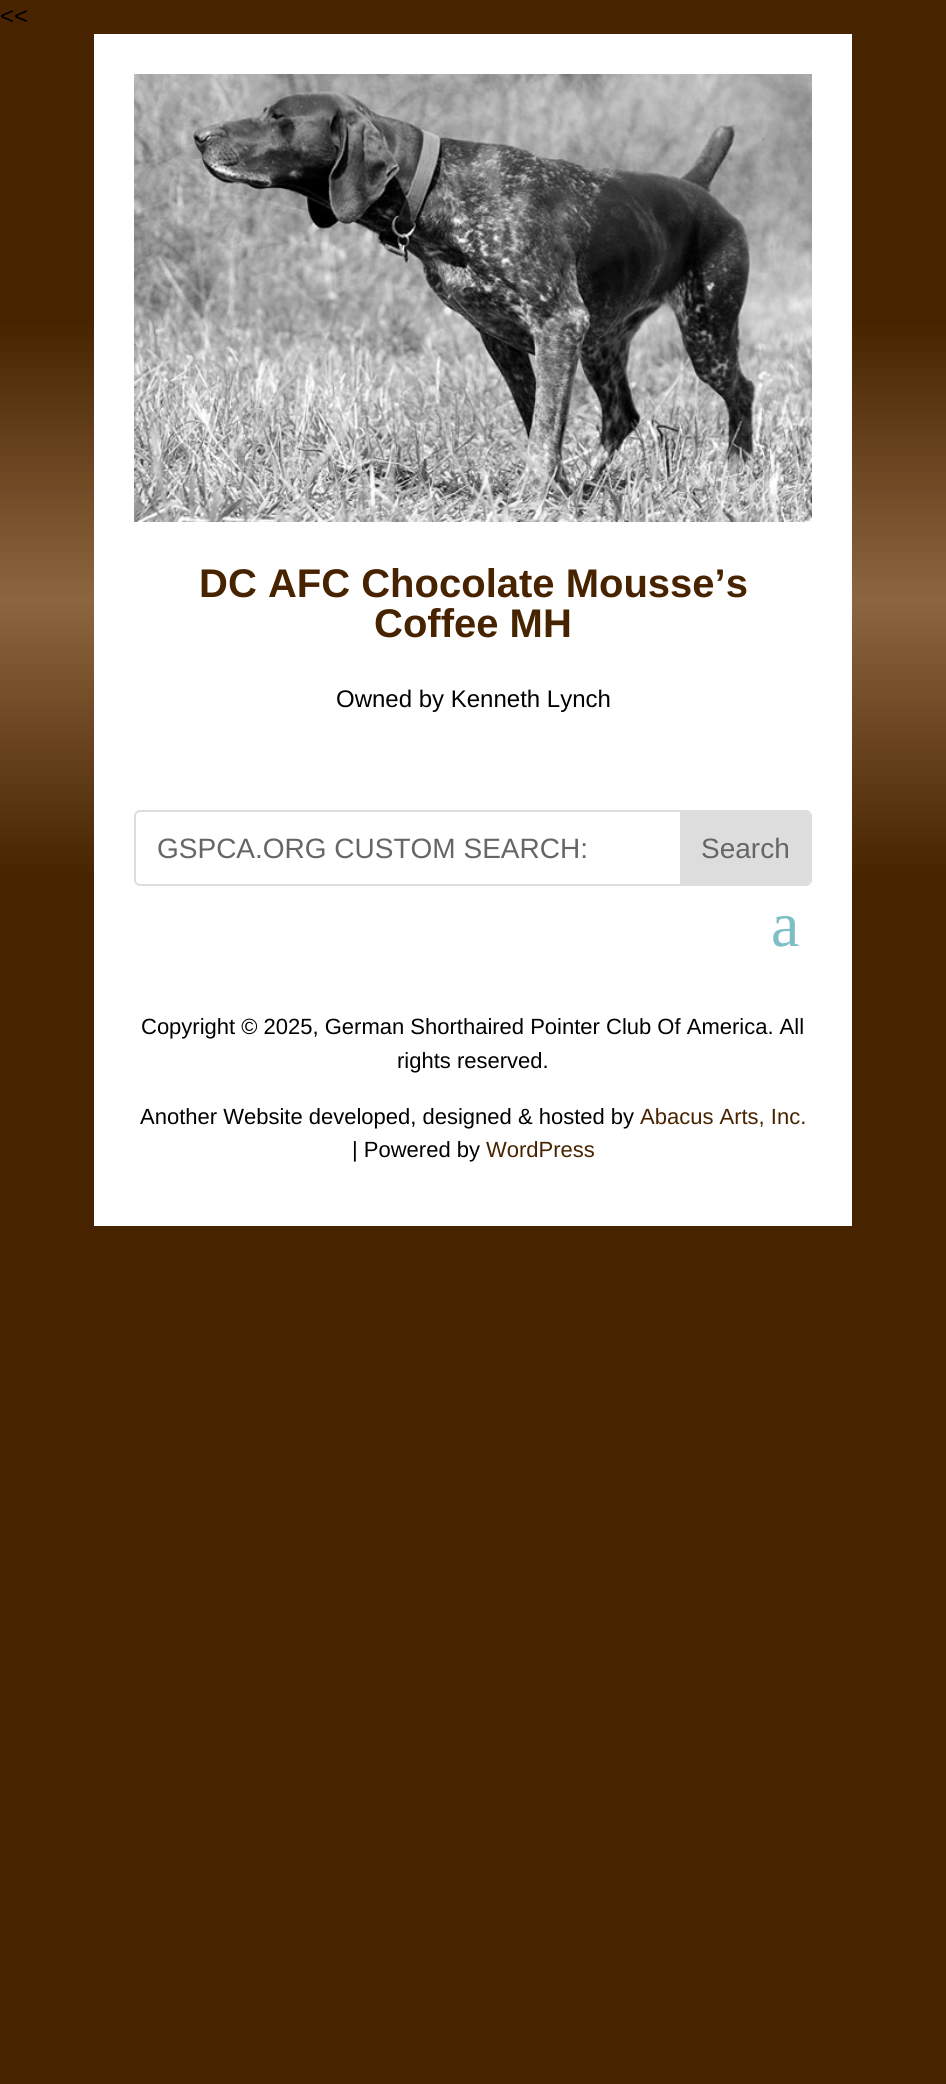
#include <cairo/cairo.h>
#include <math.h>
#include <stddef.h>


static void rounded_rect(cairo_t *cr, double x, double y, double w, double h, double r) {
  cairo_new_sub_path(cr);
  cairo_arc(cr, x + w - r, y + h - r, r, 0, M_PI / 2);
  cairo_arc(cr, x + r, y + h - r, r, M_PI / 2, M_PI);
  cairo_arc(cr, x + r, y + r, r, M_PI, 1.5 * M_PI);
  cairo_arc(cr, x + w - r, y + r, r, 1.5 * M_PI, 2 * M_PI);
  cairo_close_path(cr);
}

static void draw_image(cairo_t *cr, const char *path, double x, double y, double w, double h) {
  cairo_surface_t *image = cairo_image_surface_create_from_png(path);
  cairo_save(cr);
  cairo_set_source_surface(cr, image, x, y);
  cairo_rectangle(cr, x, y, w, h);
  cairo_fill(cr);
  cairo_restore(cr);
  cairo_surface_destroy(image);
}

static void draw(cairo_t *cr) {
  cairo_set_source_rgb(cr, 1, 1, 1);
  cairo_paint(cr);
  draw_image(cr, "images/1.png", 0, 0, 946, 2084);
  cairo_set_source_rgb(cr, 1, 1, 1);
  cairo_rectangle(cr, 94, 34, 758, 722);
  cairo_fill(cr);
  draw_image(cr, "images/2.png", 134, 74, 678, 448);
  cairo_rectangle(cr, 94, 756, 758, 470);
  cairo_fill(cr);
  rounded_rect(cr, 135, 811, 676, 74, 5);
  cairo_set_source_rgb(cr, 221 / 255.0, 221 / 255.0, 221 / 255.0);
  cairo_stroke(cr);
  cairo_new_path(cr);
  cairo_move_to(cr, 680, 812);
  cairo_line_to(cr, 806, 812);
  cairo_curve_to(cr, 808, 812, 810, 814, 810, 816);
  cairo_line_to(cr, 810, 880);
  cairo_curve_to(cr, 810, 882, 808, 884, 806, 884);
  cairo_line_to(cr, 680, 884);
  cairo_close_path(cr);
  cairo_fill(cr);
  cairo_select_font_face(cr, "Liberation Sans", CAIRO_FONT_SLANT_NORMAL, CAIRO_FONT_WEIGHT_NORMAL);
  cairo_set_font_size(cr, 24);
  cairo_set_source_rgb(cr, 0, 0, 0);
  cairo_move_to(cr, 0, 24);
  cairo_show_text(cr, "<<");
  cairo_select_font_face(cr, "Liberation Sans", CAIRO_FONT_SLANT_NORMAL, CAIRO_FONT_WEIGHT_BOLD);
  cairo_set_font_size(cr, 40);
  cairo_set_source_rgb(cr, 72 / 255.0, 35 / 255.0, 0);
  cairo_move_to(cr, 199, 597);
  cairo_show_text(cr, "DC AFC Chocolate Mousse’s");
  cairo_move_to(cr, 374, 637);
  cairo_show_text(cr, "Coffee MH");
  cairo_select_font_face(cr, "Liberation Sans", CAIRO_FONT_SLANT_NORMAL, CAIRO_FONT_WEIGHT_NORMAL);
  cairo_set_font_size(cr, 24);
  cairo_set_source_rgb(cr, 0, 0, 0);
  cairo_move_to(cr, 336, 707);
  cairo_show_text(cr, "Owned by Kenneth Lynch");
  cairo_set_font_size(cr, 28);
  cairo_set_source_rgb(cr, 102 / 255.0, 102 / 255.0, 102 / 255.0);
  cairo_move_to(cr, 157, 858);
  cairo_show_text(cr, "GSPCA.ORG CUSTOM SEARCH:");
  cairo_move_to(cr, 701, 858);
  cairo_show_text(cr, "Search");
  cairo_select_font_face(cr, "Liberation Serif", CAIRO_FONT_SLANT_NORMAL, CAIRO_FONT_WEIGHT_NORMAL);
  cairo_set_font_size(cr, 64);
  cairo_set_source_rgb(cr, 126 / 255.0, 190 / 255.0, 197 / 255.0);
  cairo_move_to(cr, 771, 946);
  cairo_show_text(cr, "a");
  cairo_select_font_face(cr, "Liberation Sans", CAIRO_FONT_SLANT_NORMAL, CAIRO_FONT_WEIGHT_NORMAL);
  cairo_set_font_size(cr, 22);
  cairo_set_source_rgb(cr, 0, 0, 0);
  cairo_move_to(cr, 141, 1034);
  cairo_show_text(cr, "Copyright © 2025, German Shorthaired Pointer Club Of America. All");
  cairo_move_to(cr, 397, 1068);
  cairo_show_text(cr, "rights reserved.");
  cairo_move_to(cr, 140, 1124);
  cairo_show_text(cr, "Another Website developed, designed & hosted by");
  cairo_set_source_rgb(cr, 72 / 255.0, 35 / 255.0, 0);
  cairo_move_to(cr, 640, 1124);
  cairo_show_text(cr, "Abacus Arts, Inc.");
  cairo_set_source_rgb(cr, 0, 0, 0);
  cairo_move_to(cr, 352, 1157);
  cairo_show_text(cr, "| Powered by");
  cairo_set_source_rgb(cr, 72 / 255.0, 35 / 255.0, 0);
  cairo_move_to(cr, 486, 1157);
  cairo_show_text(cr, "WordPress");
}

int main(void) {
  cairo_surface_t *surface = cairo_image_surface_create(CAIRO_FORMAT_RGB24, 946, 2084);
  cairo_t *cr = cairo_create(surface);
  cairo_font_options_t *options = cairo_font_options_create();
  cairo_font_options_set_hint_metrics(options, CAIRO_HINT_METRICS_OFF);
  cairo_font_options_set_hint_style(options, CAIRO_HINT_STYLE_NONE);
  cairo_set_font_options(cr, options);
  cairo_set_miter_limit(cr, 4);
  draw(cr);
  cairo_surface_write_to_png(surface, "out.png");
  cairo_font_options_destroy(options);
  cairo_destroy(cr);
  cairo_surface_destroy(surface);
  return 0;
}
